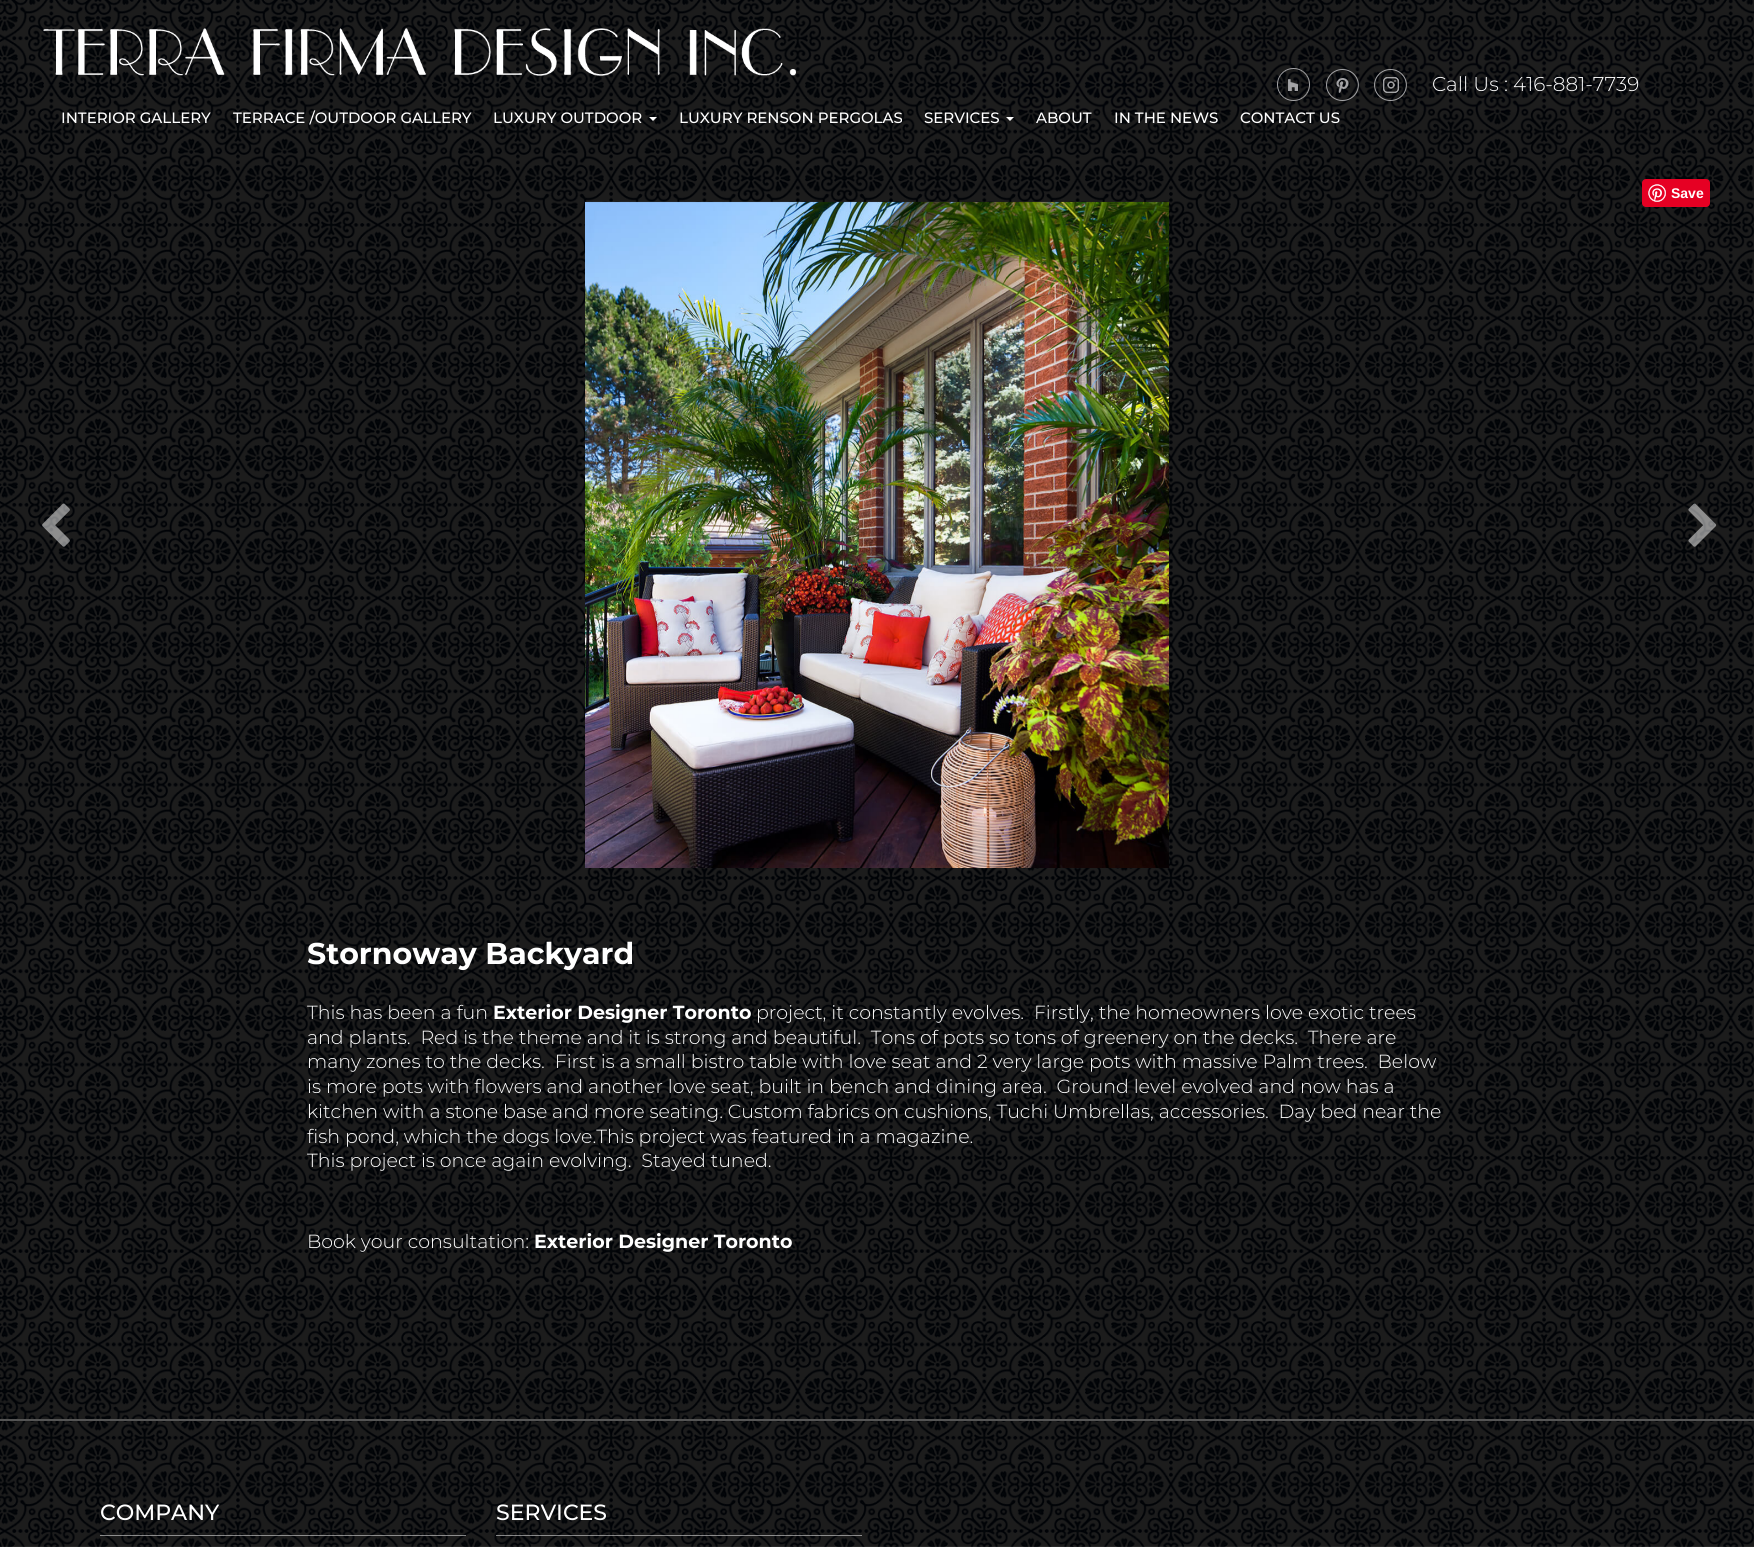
#include <cairo/cairo.h>
#include <math.h>
#include <stddef.h>


static void rounded_rect(cairo_t *cr, double x, double y, double w, double h, double r) {
  cairo_new_sub_path(cr);
  cairo_arc(cr, x + w - r, y + h - r, r, 0, M_PI / 2);
  cairo_arc(cr, x + r, y + h - r, r, M_PI / 2, M_PI);
  cairo_arc(cr, x + r, y + r, r, M_PI, 1.5 * M_PI);
  cairo_arc(cr, x + w - r, y + r, r, 1.5 * M_PI, 2 * M_PI);
  cairo_close_path(cr);
}

static void draw_image(cairo_t *cr, const char *path, double x, double y, double w, double h) {
  cairo_surface_t *image = cairo_image_surface_create_from_png(path);
  cairo_save(cr);
  cairo_set_source_surface(cr, image, x, y);
  cairo_rectangle(cr, x, y, w, h);
  cairo_fill(cr);
  cairo_restore(cr);
  cairo_surface_destroy(image);
}

static void draw(cairo_t *cr) {
  cairo_set_source_rgb(cr, 1, 1, 1);
  cairo_paint(cr);
  draw_image(cr, "images/1.png", 0, 0, 1754, 1547);
  draw_image(cr, "images/2.png", 948, 35, 712, 77);
  draw_image(cr, "images/3.png", 43, 28, 753, 48);
  draw_image(cr, "images/4.png", 1277, 68, 33, 33);
  draw_image(cr, "images/5.png", 1326, 69, 33, 32);
  draw_image(cr, "images/6.png", 1374, 69, 33, 32);
  cairo_set_source_rgb(cr, 1, 1, 1);
  cairo_new_path(cr);
  cairo_move_to(cr, 649, 117);
  cairo_line_to(cr, 657, 117);
  cairo_line_to(cr, 653, 121);
  cairo_close_path(cr);
  cairo_fill(cr);
  cairo_new_path(cr);
  cairo_move_to(cr, 1006, 117);
  cairo_line_to(cr, 1014, 117);
  cairo_line_to(cr, 1010, 121);
  cairo_close_path(cr);
  cairo_fill(cr);
  cairo_set_source_rgb(cr, 230 / 255.0, 0, 35 / 255.0);
  rounded_rect(cr, 1642, 179, 68, 28, 4);
  cairo_fill(cr);
  draw_image(cr, "images/7.png", 1648, 184, 18, 18);
  draw_image(cr, "images/8.png", 585, 201, 584, 667);
  draw_image(cr, "images/9.png", 42, 503, 28, 44);
  draw_image(cr, "images/10.png", 1688, 503, 29, 44);
  cairo_set_source_rgb(cr, 84 / 255.0, 84 / 255.0, 84 / 255.0);
  cairo_rectangle(cr, 0, 1419, 1754, 2);
  cairo_fill(cr);
  cairo_set_source_rgba(cr, 1, 1, 1, 0.5);
  cairo_rectangle(cr, 100, 1535, 366, 1);
  cairo_fill(cr);
  cairo_rectangle(cr, 496, 1535, 366, 1);
  cairo_fill(cr);
  cairo_select_font_face(cr, "Montserrat Light", CAIRO_FONT_SLANT_NORMAL, CAIRO_FONT_WEIGHT_NORMAL);
  cairo_set_font_size(cr, 20);
  cairo_set_source_rgb(cr, 1, 1, 1);
  cairo_move_to(cr, 1432, 91);
  cairo_show_text(cr, "Call Us : 416-881-7739");
  cairo_select_font_face(cr, "Montserrat Medium", CAIRO_FONT_SLANT_NORMAL, CAIRO_FONT_WEIGHT_NORMAL);
  cairo_set_font_size(cr, 15);
  cairo_move_to(cr, 61, 123);
  cairo_show_text(cr, "INTERIOR GALLERY");
  cairo_move_to(cr, 233, 123);
  cairo_show_text(cr, "TERRACE /OUTDOOR GALLERY");
  cairo_move_to(cr, 493, 123);
  cairo_show_text(cr, "LUXURY OUTDOOR");
  cairo_move_to(cr, 679, 123);
  cairo_show_text(cr, "LUXURY RENSON PERGOLAS");
  cairo_move_to(cr, 924, 123);
  cairo_show_text(cr, "SERVICES");
  cairo_move_to(cr, 1036, 123);
  cairo_show_text(cr, "ABOUT");
  cairo_move_to(cr, 1114, 123);
  cairo_show_text(cr, "IN THE NEWS");
  cairo_move_to(cr, 1240, 123);
  cairo_show_text(cr, "CONTACT US");
  cairo_select_font_face(cr, "Liberation Sans", CAIRO_FONT_SLANT_NORMAL, CAIRO_FONT_WEIGHT_BOLD);
  cairo_set_font_size(cr, 14);
  cairo_move_to(cr, 1671, 198);
  cairo_show_text(cr, "Save");
  cairo_select_font_face(cr, "Montserrat", CAIRO_FONT_SLANT_NORMAL, CAIRO_FONT_WEIGHT_BOLD);
  cairo_set_font_size(cr, 30);
  cairo_move_to(cr, 307, 964);
  cairo_show_text(cr, "Stornoway Backyard");
  cairo_select_font_face(cr, "Montserrat Light", CAIRO_FONT_SLANT_NORMAL, CAIRO_FONT_WEIGHT_NORMAL);
  cairo_set_font_size(cr, 19);
  cairo_move_to(cr, 307, 1019);
  cairo_show_text(cr, "This has been a fun");
  cairo_select_font_face(cr, "Montserrat", CAIRO_FONT_SLANT_NORMAL, CAIRO_FONT_WEIGHT_BOLD);
  cairo_move_to(cr, 493, 1019);
  cairo_show_text(cr, "Exterior Designer Toronto");
  cairo_select_font_face(cr, "Montserrat Light", CAIRO_FONT_SLANT_NORMAL, CAIRO_FONT_WEIGHT_NORMAL);
  cairo_move_to(cr, 756, 1019);
  cairo_show_text(cr, "project, it constantly evolves.  Firstly, the homeowners love exotic trees");
  cairo_move_to(cr, 307, 1044);
  cairo_show_text(cr, "and plants.  Red is the theme and it is strong and beautiful.  Tons of pots so tons of greenery on the decks.  There are");
  cairo_move_to(cr, 307, 1068);
  cairo_show_text(cr, "many zones to the decks.  First is a small bistro table with love seat and 2 very large pots with massive Palm trees.  Below");
  cairo_move_to(cr, 307, 1093);
  cairo_show_text(cr, "is more pots with flowers and another love seat, built in bench and dining area.  Ground level evolved and now has a");
  cairo_move_to(cr, 307, 1118);
  cairo_show_text(cr, "kitchen with a stone base and more seating. Custom fabrics on cushions, Tuchi Umbrellas, accessories.  Day bed near the");
  cairo_move_to(cr, 307, 1143);
  cairo_show_text(cr, "fish pond, which the dogs love.This project was featured in a magazine.");
  cairo_move_to(cr, 307, 1167);
  cairo_show_text(cr, "This project is once again evolving.  Stayed tuned.");
  cairo_move_to(cr, 307, 1248);
  cairo_show_text(cr, "Book your consultation:");
  cairo_select_font_face(cr, "Montserrat", CAIRO_FONT_SLANT_NORMAL, CAIRO_FONT_WEIGHT_BOLD);
  cairo_move_to(cr, 534, 1248);
  cairo_show_text(cr, "Exterior Designer Toronto");
  cairo_select_font_face(cr, "Montserrat Medium", CAIRO_FONT_SLANT_NORMAL, CAIRO_FONT_WEIGHT_NORMAL);
  cairo_set_font_size(cr, 22);
  cairo_move_to(cr, 100, 1520);
  cairo_show_text(cr, "COMPANY");
  cairo_move_to(cr, 496, 1520);
  cairo_show_text(cr, "SERVICES");
}

int main(void) {
  cairo_surface_t *surface = cairo_image_surface_create(CAIRO_FORMAT_RGB24, 1754, 1547);
  cairo_t *cr = cairo_create(surface);
  cairo_font_options_t *options = cairo_font_options_create();
  cairo_font_options_set_hint_metrics(options, CAIRO_HINT_METRICS_OFF);
  cairo_font_options_set_hint_style(options, CAIRO_HINT_STYLE_NONE);
  cairo_set_font_options(cr, options);
  cairo_set_miter_limit(cr, 4);
  draw(cr);
  cairo_surface_write_to_png(surface, "out.png");
  cairo_font_options_destroy(options);
  cairo_destroy(cr);
  cairo_surface_destroy(surface);
  return 0;
}
